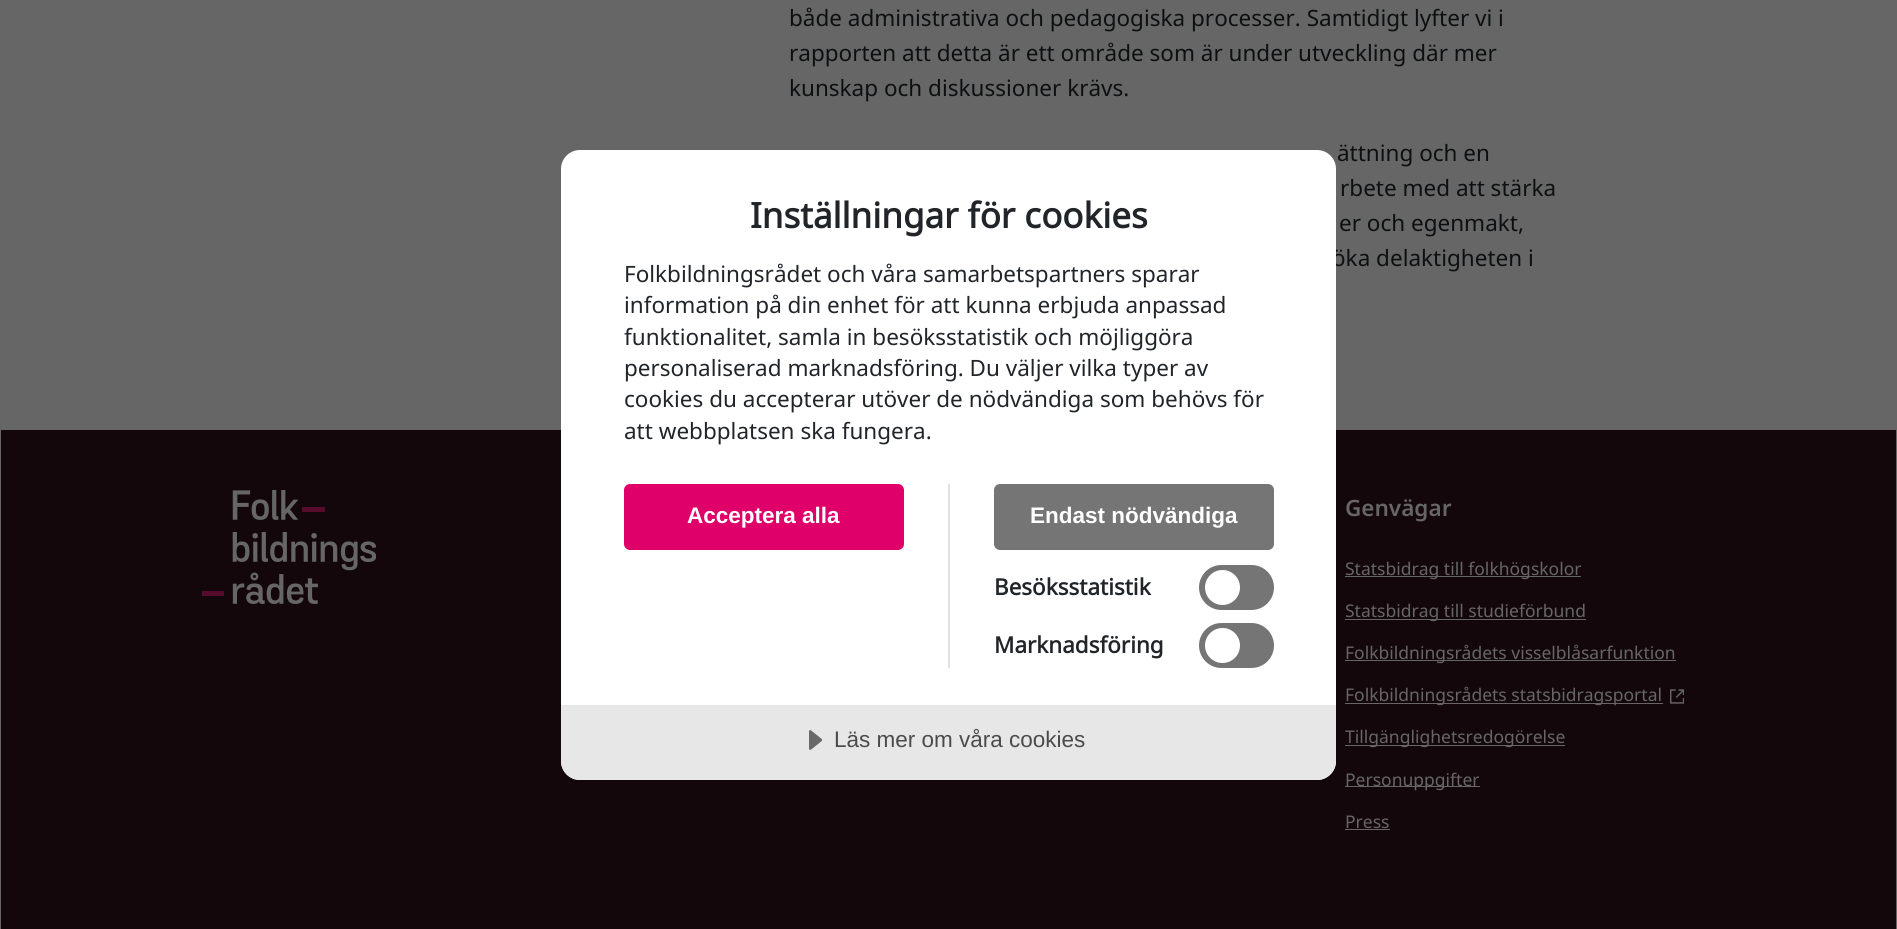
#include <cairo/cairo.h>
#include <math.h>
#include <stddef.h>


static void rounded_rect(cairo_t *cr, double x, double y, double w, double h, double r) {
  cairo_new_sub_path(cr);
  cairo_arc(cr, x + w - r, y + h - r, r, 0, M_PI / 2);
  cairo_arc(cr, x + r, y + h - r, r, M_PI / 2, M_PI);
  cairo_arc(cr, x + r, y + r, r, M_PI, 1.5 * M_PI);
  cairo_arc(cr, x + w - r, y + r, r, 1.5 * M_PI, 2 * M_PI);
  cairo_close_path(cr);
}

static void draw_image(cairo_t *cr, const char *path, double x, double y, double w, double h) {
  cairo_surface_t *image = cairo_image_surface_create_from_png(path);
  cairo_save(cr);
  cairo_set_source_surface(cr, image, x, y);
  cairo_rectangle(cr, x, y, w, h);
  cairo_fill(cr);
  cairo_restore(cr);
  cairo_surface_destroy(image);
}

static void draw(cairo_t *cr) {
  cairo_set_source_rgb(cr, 102 / 255.0, 102 / 255.0, 102 / 255.0);
  cairo_paint(cr);
  cairo_set_source_rgb(cr, 19 / 255.0, 7 / 255.0, 12 / 255.0);
  cairo_rectangle(cr, 1, 430, 1895, 499);
  cairo_fill(cr);
  draw_image(cr, "images/2.png", 202, 490, 174, 114);
  cairo_set_source_rgb(cr, 102 / 255.0, 102 / 255.0, 102 / 255.0);
  cairo_rectangle(cr, 1345, 576, 236, 1);
  cairo_fill(cr);
  cairo_rectangle(cr, 1345, 619, 241, 1);
  cairo_fill(cr);
  cairo_rectangle(cr, 1345, 660, 331, 1);
  cairo_fill(cr);
  cairo_rectangle(cr, 1345, 703, 318, 1);
  cairo_fill(cr);
  draw_image(cr, "images/3.png", 1670, 689, 14, 15);
  cairo_rectangle(cr, 1345, 745, 220, 1);
  cairo_fill(cr);
  cairo_rectangle(cr, 1345, 786, 135, 1);
  cairo_fill(cr);
  cairo_rectangle(cr, 1345, 829, 45, 1);
  cairo_fill(cr);
  cairo_select_font_face(cr, "Noto Sans", CAIRO_FONT_SLANT_NORMAL, CAIRO_FONT_WEIGHT_NORMAL);
  cairo_set_font_size(cr, 22.5);
  cairo_set_source_rgb(cr, 13 / 255.0, 15 / 255.0, 16 / 255.0);
  cairo_move_to(cr, 789, 26);
  cairo_show_text(cr, "både administrativa och pedagogiska processer. Samtidigt lyfter vi i");
  cairo_move_to(cr, 789, 61);
  cairo_show_text(cr, "rapporten att detta är ett område som är under utveckling där mer");
  cairo_move_to(cr, 789, 96);
  cairo_show_text(cr, "kunskap och diskussioner krävs.");
  cairo_move_to(cr, 1337, 161);
  cairo_show_text(cr, "ättning och en");
  cairo_move_to(cr, 1340, 196);
  cairo_show_text(cr, "rbete med att stärka");
  cairo_move_to(cr, 1339, 231);
  cairo_show_text(cr, "er och egenmakt,");
  cairo_move_to(cr, 1332, 266);
  cairo_show_text(cr, "öka delaktigheten i");
  cairo_set_source_rgb(cr, 1, 1, 1);
  rounded_rect(cr, 561, 150, 775, 630, 19);
  cairo_fill(cr);
  cairo_select_font_face(cr, "Noto Sans", CAIRO_FONT_SLANT_NORMAL, CAIRO_FONT_WEIGHT_BOLD);
  cairo_set_font_size(cr, 35);
  cairo_set_source_rgb(cr, 33 / 255.0, 37 / 255.0, 41 / 255.0);
  cairo_move_to(cr, 750, 228);
  cairo_show_text(cr, "Inställningar för cookies");
  cairo_select_font_face(cr, "Noto Sans", CAIRO_FONT_SLANT_NORMAL, CAIRO_FONT_WEIGHT_NORMAL);
  cairo_set_font_size(cr, 22.5);
  cairo_move_to(cr, 624, 282);
  cairo_show_text(cr, "Folkbildningsrådet och våra samarbetspartners sparar");
  cairo_move_to(cr, 624, 313);
  cairo_show_text(cr, "information på din enhet för att kunna erbjuda anpassad");
  cairo_move_to(cr, 624, 345);
  cairo_show_text(cr, "funktionalitet, samla in besöksstatistik och möjliggöra");
  cairo_move_to(cr, 624, 376);
  cairo_show_text(cr, "personaliserad marknadsföring. Du väljer vilka typer av");
  cairo_move_to(cr, 624, 407);
  cairo_show_text(cr, "cookies du accepterar utöver de nödvändiga som behövs för");
  cairo_move_to(cr, 624, 439);
  cairo_show_text(cr, "att webbplatsen ska fungera.");
  cairo_set_source_rgb(cr, 224 / 255.0, 224 / 255.0, 224 / 255.0);
  cairo_rectangle(cr, 948, 484, 2, 184);
  cairo_fill(cr);
  cairo_set_source_rgb(cr, 224 / 255.0, 0, 105 / 255.0);
  rounded_rect(cr, 624, 484, 280, 66, 6);
  cairo_fill(cr);
  cairo_select_font_face(cr, "Liberation Sans", CAIRO_FONT_SLANT_NORMAL, CAIRO_FONT_WEIGHT_BOLD);
  cairo_set_source_rgb(cr, 1, 1, 1);
  cairo_move_to(cr, 687, 523);
  cairo_show_text(cr, "Acceptera alla");
  cairo_set_source_rgb(cr, 117 / 255.0, 117 / 255.0, 117 / 255.0);
  rounded_rect(cr, 994, 484, 280, 66, 6);
  cairo_fill(cr);
  cairo_set_source_rgb(cr, 1, 1, 1);
  cairo_move_to(cr, 1030, 523);
  cairo_show_text(cr, "Endast nödvändiga");
  cairo_select_font_face(cr, "Noto Sans", CAIRO_FONT_SLANT_NORMAL, CAIRO_FONT_WEIGHT_BOLD);
  cairo_set_source_rgb(cr, 33 / 255.0, 37 / 255.0, 41 / 255.0);
  cairo_move_to(cr, 994, 595);
  cairo_show_text(cr, "Besöksstatistik");
  cairo_set_source_rgb(cr, 117 / 255.0, 117 / 255.0, 117 / 255.0);
  rounded_rect(cr, 1199, 565, 75, 45, 22.5);
  cairo_fill(cr);
  cairo_set_source_rgb(cr, 1, 1, 1);
  cairo_arc(cr, 1222.5, 587.5, 17.5, 0, 2 * M_PI);
  cairo_fill(cr);
  cairo_set_source_rgb(cr, 33 / 255.0, 37 / 255.0, 41 / 255.0);
  cairo_move_to(cr, 994, 653);
  cairo_show_text(cr, "Marknadsföring");
  cairo_set_source_rgb(cr, 117 / 255.0, 117 / 255.0, 117 / 255.0);
  rounded_rect(cr, 1199, 623, 75, 45, 22.5);
  cairo_fill(cr);
  cairo_set_source_rgb(cr, 1, 1, 1);
  cairo_arc(cr, 1222.5, 645.5, 17.5, 0, 2 * M_PI);
  cairo_fill(cr);
  cairo_set_source_rgb(cr, 231 / 255.0, 231 / 255.0, 231 / 255.0);
  cairo_new_path(cr);
  cairo_move_to(cr, 561, 705);
  cairo_line_to(cr, 1336, 705);
  cairo_line_to(cr, 1336, 761);
  cairo_curve_to(cr, 1336, 771.5, 1327.5, 780, 1317, 780);
  cairo_line_to(cr, 580, 780);
  cairo_curve_to(cr, 569.5, 780, 561, 771.5, 561, 761);
  cairo_close_path(cr);
  cairo_fill(cr);
  draw_image(cr, "images/1.png", 809, 730, 14, 20);
  cairo_select_font_face(cr, "Liberation Sans", CAIRO_FONT_SLANT_NORMAL, CAIRO_FONT_WEIGHT_NORMAL);
  cairo_set_source_rgb(cr, 75 / 255.0, 75 / 255.0, 75 / 255.0);
  cairo_move_to(cr, 834, 747);
  cairo_show_text(cr, "Läs mer om våra cookies");
  cairo_select_font_face(cr, "Noto Sans SemiBold", CAIRO_FONT_SLANT_NORMAL, CAIRO_FONT_WEIGHT_NORMAL);
  cairo_set_source_rgb(cr, 102 / 255.0, 102 / 255.0, 102 / 255.0);
  cairo_move_to(cr, 1345, 516);
  cairo_show_text(cr, "Genvägar");
  cairo_select_font_face(cr, "Noto Sans", CAIRO_FONT_SLANT_NORMAL, CAIRO_FONT_WEIGHT_NORMAL);
  cairo_set_font_size(cr, 17.5);
  cairo_move_to(cr, 1345, 575);
  cairo_show_text(cr, "Statsbidrag till folkhögskolor");
  cairo_move_to(cr, 1345, 617);
  cairo_show_text(cr, "Statsbidrag till studieförbund");
  cairo_move_to(cr, 1345, 659);
  cairo_show_text(cr, "Folkbildningsrådets visselblåsarfunktion");
  cairo_move_to(cr, 1345, 701);
  cairo_show_text(cr, "Folkbildningsrådets statsbidragsportal");
  cairo_move_to(cr, 1345, 743);
  cairo_show_text(cr, "Tillgänglighetsredogörelse");
  cairo_move_to(cr, 1345, 786);
  cairo_show_text(cr, "Personuppgifter");
  cairo_move_to(cr, 1345, 828);
  cairo_show_text(cr, "Press");
}

int main(void) {
  cairo_surface_t *surface = cairo_image_surface_create(CAIRO_FORMAT_RGB24, 1897, 929);
  cairo_t *cr = cairo_create(surface);
  cairo_font_options_t *options = cairo_font_options_create();
  cairo_font_options_set_hint_metrics(options, CAIRO_HINT_METRICS_OFF);
  cairo_font_options_set_hint_style(options, CAIRO_HINT_STYLE_NONE);
  cairo_set_font_options(cr, options);
  cairo_set_miter_limit(cr, 4);
  draw(cr);
  cairo_surface_write_to_png(surface, "out.png");
  cairo_font_options_destroy(options);
  cairo_destroy(cr);
  cairo_surface_destroy(surface);
  return 0;
}
